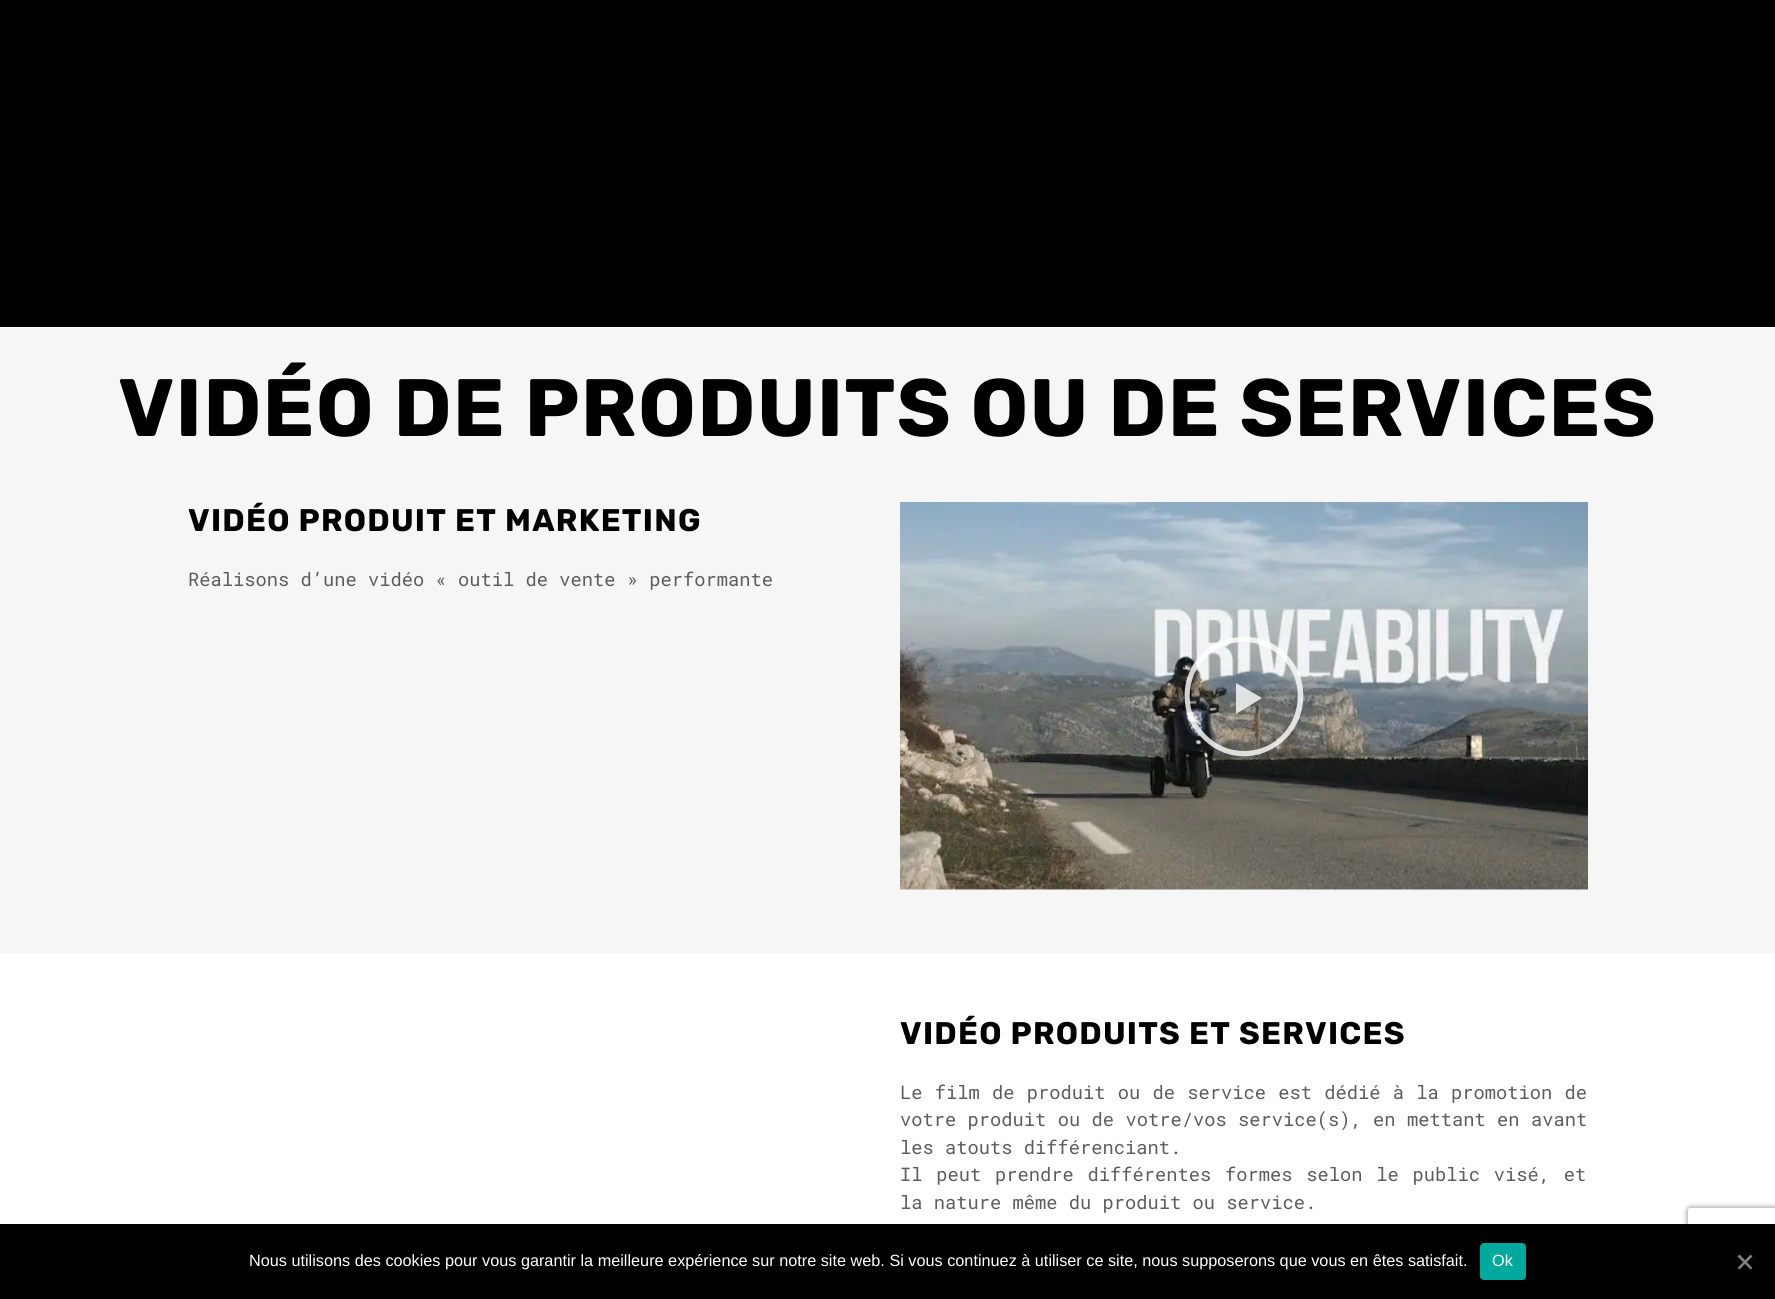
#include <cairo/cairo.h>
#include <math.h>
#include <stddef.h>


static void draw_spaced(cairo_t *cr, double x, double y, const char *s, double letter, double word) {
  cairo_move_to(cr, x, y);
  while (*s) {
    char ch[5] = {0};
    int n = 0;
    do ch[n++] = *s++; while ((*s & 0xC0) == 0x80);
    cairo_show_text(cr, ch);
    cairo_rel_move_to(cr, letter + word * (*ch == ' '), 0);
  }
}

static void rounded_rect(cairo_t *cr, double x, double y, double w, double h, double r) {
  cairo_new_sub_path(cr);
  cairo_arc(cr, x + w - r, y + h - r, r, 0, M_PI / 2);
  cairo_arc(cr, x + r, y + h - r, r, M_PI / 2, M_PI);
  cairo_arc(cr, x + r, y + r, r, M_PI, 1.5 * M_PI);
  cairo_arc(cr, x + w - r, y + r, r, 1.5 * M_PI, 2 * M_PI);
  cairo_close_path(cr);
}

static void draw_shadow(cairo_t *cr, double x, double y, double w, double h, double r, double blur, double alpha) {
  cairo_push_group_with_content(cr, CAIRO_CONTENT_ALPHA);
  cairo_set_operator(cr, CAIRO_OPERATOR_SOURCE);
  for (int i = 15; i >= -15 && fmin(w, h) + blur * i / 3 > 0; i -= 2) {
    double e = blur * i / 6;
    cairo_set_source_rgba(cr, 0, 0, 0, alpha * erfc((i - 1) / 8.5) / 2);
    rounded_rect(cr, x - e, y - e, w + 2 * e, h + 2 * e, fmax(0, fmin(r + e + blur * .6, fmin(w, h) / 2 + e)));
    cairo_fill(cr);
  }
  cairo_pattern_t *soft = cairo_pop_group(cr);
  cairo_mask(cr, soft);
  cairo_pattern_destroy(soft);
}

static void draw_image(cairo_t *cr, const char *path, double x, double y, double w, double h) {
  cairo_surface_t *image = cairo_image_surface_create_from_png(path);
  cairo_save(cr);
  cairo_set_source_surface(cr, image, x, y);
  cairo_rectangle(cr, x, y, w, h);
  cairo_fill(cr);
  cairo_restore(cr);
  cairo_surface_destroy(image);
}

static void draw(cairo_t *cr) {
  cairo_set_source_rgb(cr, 1, 1, 1);
  cairo_paint(cr);
  cairo_set_source_rgb(cr, 0, 0, 0);
  cairo_rectangle(cr, 0, 0, 1775, 327);
  cairo_fill(cr);
  cairo_set_source_rgb(cr, 246 / 255.0, 246 / 255.0, 246 / 255.0);
  cairo_rectangle(cr, 0, 328, 1775, 625);
  cairo_fill(cr);
  draw_image(cr, "images/1.png", 900, 502, 688, 388);
  cairo_set_source_rgba(cr, 1, 1, 1, 0.8);
  cairo_new_path(cr);
  cairo_move_to(cr, 1286, 654);
  cairo_curve_to(cr, 1276, 644, 1264, 638, 1250, 637);
  cairo_curve_to(cr, 1212, 634, 1181, 664, 1185, 702);
  cairo_curve_to(cr, 1186, 716, 1192, 729, 1202, 738);
  cairo_curve_to(cr, 1242, 779, 1308, 746, 1303, 690);
  cairo_curve_to(cr, 1302, 676, 1296, 664, 1286, 654);
  cairo_close_path(cr);
  cairo_move_to(cr, 1282, 658);
  cairo_curve_to(cr, 1306, 682, 1302, 722, 1274, 742);
  cairo_curve_to(cr, 1265, 748, 1254, 751, 1244, 751);
  cairo_curve_to(cr, 1229, 751, 1216, 745, 1206, 735);
  cairo_curve_to(cr, 1197, 726, 1191, 714, 1190, 702);
  cairo_curve_to(cr, 1185, 651, 1245, 622, 1282, 658);
  cairo_close_path(cr);
  cairo_move_to(cr, 1236, 683);
  cairo_line_to(cr, 1236, 714);
  cairo_line_to(cr, 1262, 698);
  cairo_close_path(cr);
  cairo_fill(cr);
  cairo_save(cr);
  cairo_set_fill_rule(cr, CAIRO_FILL_RULE_EVEN_ODD);
  cairo_new_path(cr);
  cairo_move_to(cr, 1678, 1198);
  cairo_line_to(cr, 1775, 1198);
  cairo_line_to(cr, 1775, 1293);
  cairo_line_to(cr, 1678, 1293);
  cairo_close_path(cr);
  cairo_move_to(cr, 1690.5, 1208);
  cairo_line_to(cr, 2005.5, 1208);
  cairo_curve_to(cr, 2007, 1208, 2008, 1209, 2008, 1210.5);
  cairo_line_to(cr, 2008, 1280.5);
  cairo_curve_to(cr, 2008, 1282, 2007, 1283, 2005.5, 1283);
  cairo_line_to(cr, 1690.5, 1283);
  cairo_curve_to(cr, 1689, 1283, 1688, 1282, 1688, 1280.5);
  cairo_line_to(cr, 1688, 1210.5);
  cairo_curve_to(cr, 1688, 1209, 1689, 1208, 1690.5, 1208);
  cairo_close_path(cr);
  cairo_clip(cr);
  cairo_set_source_rgb(cr, 128 / 255.0, 128 / 255.0, 128 / 255.0);
  draw_shadow(cr, 1688, 1208, 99, 75, 2.5, 3, 1);
  cairo_restore(cr);
  cairo_set_source_rgb(cr, 0, 0, 0);
  cairo_rectangle(cr, 0, 1224, 1775, 75);
  cairo_fill(cr);
  cairo_set_source_rgb(cr, 0, 169 / 255.0, 157 / 255.0);
  rounded_rect(cr, 1480, 1243, 46, 37, 4);
  cairo_fill(cr);
  cairo_set_source_rgb(cr, 128 / 255.0, 128 / 255.0, 128 / 255.0);
  cairo_new_path(cr);
  cairo_move_to(cr, 1750.5, 1254.5);
  cairo_line_to(cr, 1752.5, 1256.5);
  cairo_line_to(cr, 1739.5, 1269.5);
  cairo_line_to(cr, 1737.5, 1268);
  cairo_close_path(cr);
  cairo_fill(cr);
  cairo_new_path(cr);
  cairo_move_to(cr, 1737.5, 1256.5);
  cairo_line_to(cr, 1739.5, 1254.5);
  cairo_line_to(cr, 1752.5, 1268);
  cairo_line_to(cr, 1750.5, 1269.5);
  cairo_close_path(cr);
  cairo_fill(cr);
  cairo_select_font_face(cr, "Rubik", CAIRO_FONT_SLANT_NORMAL, CAIRO_FONT_WEIGHT_BOLD);
  cairo_set_font_size(cr, 81.25);
  cairo_set_source_rgb(cr, 0, 0, 0);
  draw_spaced(cr, 118, 436, "VIDÉO DE PRODUITS OU DE SERVICES", 1.25, 0);
  cairo_set_font_size(cr, 31.25);
  draw_spaced(cr, 188, 531, "VIDÉO PRODUIT ET MARKETING", 1.25, 0);
  cairo_select_font_face(cr, "Roboto Mono", CAIRO_FONT_SLANT_NORMAL, CAIRO_FONT_WEIGHT_NORMAL);
  cairo_set_font_size(cr, 18.75);
  cairo_set_source_rgb(cr, 93 / 255.0, 92 / 255.0, 92 / 255.0);
  cairo_move_to(cr, 188, 586);
  cairo_show_text(cr, "Réalisons d’une vidéo « outil de vente » performante");
  cairo_select_font_face(cr, "Rubik", CAIRO_FONT_SLANT_NORMAL, CAIRO_FONT_WEIGHT_BOLD);
  cairo_set_font_size(cr, 31.25);
  cairo_set_source_rgb(cr, 0, 0, 0);
  draw_spaced(cr, 900, 1044, "VIDÉO PRODUITS ET SERVICES", 1.25, 0);
  cairo_select_font_face(cr, "Roboto Mono", CAIRO_FONT_SLANT_NORMAL, CAIRO_FONT_WEIGHT_NORMAL);
  cairo_set_font_size(cr, 18.75);
  cairo_set_source_rgb(cr, 93 / 255.0, 92 / 255.0, 92 / 255.0);
  draw_spaced(cr, 900, 1099, "Le film de produit ou de service est dédié à la promotion de", 0, 1);
  draw_spaced(cr, 900, 1126, "votre produit ou de votre/vos service(s), en mettant en avant", 0, 0.1);
  cairo_move_to(cr, 900, 1154);
  cairo_show_text(cr, "les atouts différenciant.");
  draw_spaced(cr, 900, 1181, "Il peut prendre différentes formes selon le public visé, et", 0, 2.5);
  cairo_move_to(cr, 900, 1209);
  cairo_show_text(cr, "la nature même du produit ou service.");
  cairo_select_font_face(cr, "Liberation Sans", CAIRO_FONT_SLANT_NORMAL, CAIRO_FONT_WEIGHT_NORMAL);
  cairo_set_font_size(cr, 16.25);
  cairo_set_source_rgb(cr, 1, 1, 1);
  cairo_move_to(cr, 249, 1266);
  cairo_show_text(cr, "Nous utilisons des cookies pour vous garantir la meilleure expérience sur notre site web. Si vous continuez à utiliser ce site, nous supposerons que vous en êtes satisfait.");
  cairo_move_to(cr, 1492, 1266);
  cairo_show_text(cr, "Ok");
}

int main(void) {
  cairo_surface_t *surface = cairo_image_surface_create(CAIRO_FORMAT_RGB24, 1775, 1299);
  cairo_t *cr = cairo_create(surface);
  cairo_font_options_t *options = cairo_font_options_create();
  cairo_font_options_set_hint_metrics(options, CAIRO_HINT_METRICS_OFF);
  cairo_font_options_set_hint_style(options, CAIRO_HINT_STYLE_NONE);
  cairo_set_font_options(cr, options);
  cairo_set_miter_limit(cr, 4);
  draw(cr);
  cairo_surface_write_to_png(surface, "out.png");
  cairo_font_options_destroy(options);
  cairo_destroy(cr);
  cairo_surface_destroy(surface);
  return 0;
}
